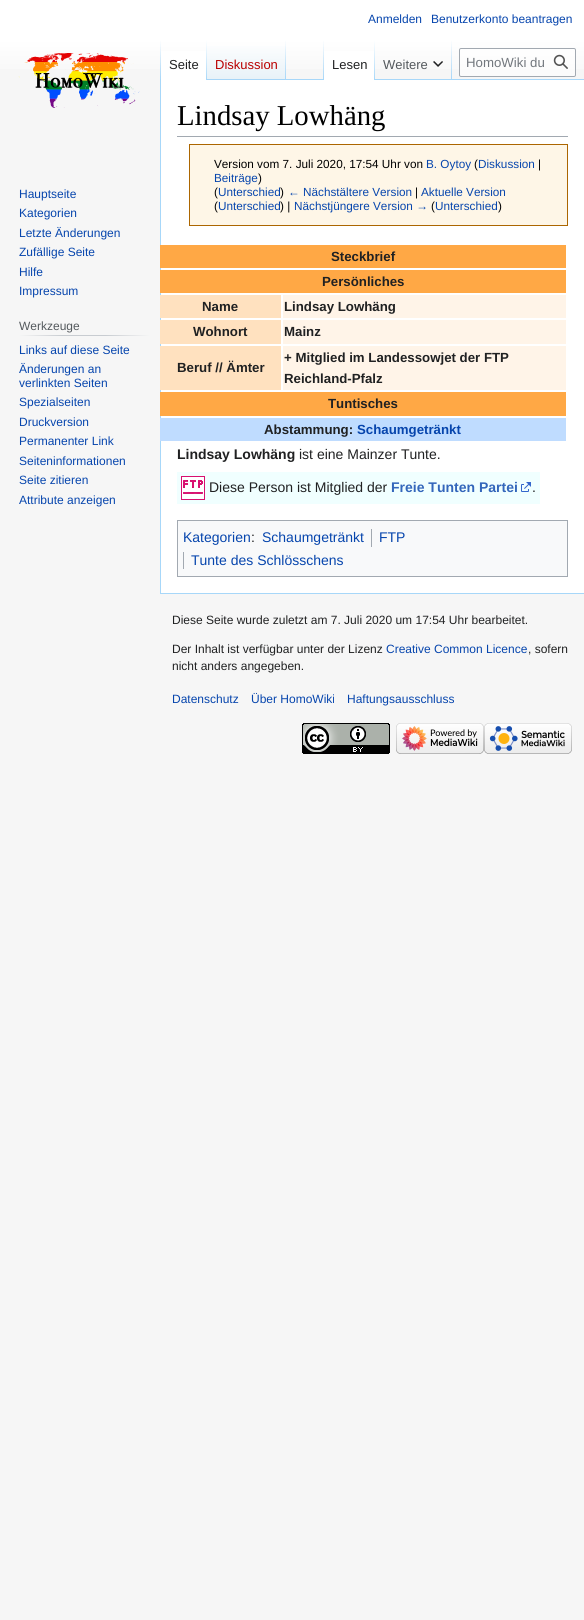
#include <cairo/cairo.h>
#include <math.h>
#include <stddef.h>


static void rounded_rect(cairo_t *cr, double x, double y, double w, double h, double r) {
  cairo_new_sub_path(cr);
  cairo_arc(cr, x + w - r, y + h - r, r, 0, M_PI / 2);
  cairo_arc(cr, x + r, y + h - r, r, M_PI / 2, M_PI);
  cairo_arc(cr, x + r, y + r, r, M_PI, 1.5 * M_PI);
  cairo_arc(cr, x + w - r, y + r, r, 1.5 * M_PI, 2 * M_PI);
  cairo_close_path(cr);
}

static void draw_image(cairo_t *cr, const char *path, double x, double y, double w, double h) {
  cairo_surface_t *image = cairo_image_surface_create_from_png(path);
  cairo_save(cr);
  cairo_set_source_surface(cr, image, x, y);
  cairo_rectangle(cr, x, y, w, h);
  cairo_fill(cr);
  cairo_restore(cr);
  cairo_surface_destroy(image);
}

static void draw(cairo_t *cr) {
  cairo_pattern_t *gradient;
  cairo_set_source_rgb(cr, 246 / 255.0, 246 / 255.0, 246 / 255.0);
  cairo_paint(cr);
  gradient = cairo_pattern_create_linear(292, 0, 292, 80);
  cairo_pattern_add_color_stop_rgba(gradient, 0.5, 1, 1, 1, 1);
  cairo_pattern_add_color_stop_rgba(gradient, 1, 246 / 255.0, 246 / 255.0, 246 / 255.0, 1);
  cairo_set_source(cr, gradient);
  cairo_pattern_destroy(gradient);
  cairo_rectangle(cr, 0, 0, 584, 69);
  cairo_fill(cr);
  cairo_set_source_rgb(cr, 167 / 255.0, 215 / 255.0, 249 / 255.0);
  cairo_rectangle(cr, 160, 593, 424, 1);
  cairo_fill(cr);
  cairo_rectangle(cr, 160, 79, 1, 515);
  cairo_fill(cr);
  gradient = cairo_pattern_create_linear(161, 40, 161, 80);
  cairo_pattern_add_color_stop_rgba(gradient, 0, 167 / 255.0, 215 / 255.0, 249 / 255.0, 0);
  cairo_pattern_add_color_stop_rgba(gradient, 1, 167 / 255.0, 215 / 255.0, 249 / 255.0, 1);
  cairo_set_source(cr, gradient);
  cairo_pattern_destroy(gradient);
  cairo_rectangle(cr, 160, 40, 1, 40);
  cairo_fill(cr);
  cairo_set_source_rgb(cr, 1, 1, 1);
  cairo_rectangle(cr, 161, 51, 45, 29);
  cairo_fill(cr);
  gradient = cairo_pattern_create_linear(207, 40, 207, 80);
  cairo_pattern_add_color_stop_rgba(gradient, 0, 1, 1, 1, 1);
  cairo_pattern_add_color_stop_rgba(gradient, 1, 167 / 255.0, 215 / 255.0, 249 / 255.0, 1);
  cairo_set_source(cr, gradient);
  cairo_pattern_destroy(gradient);
  cairo_rectangle(cr, 206, 40, 1, 40);
  cairo_fill(cr);
  gradient = cairo_pattern_create_linear(247, 80, 247, 40);
  cairo_pattern_add_color_stop_rgba(gradient, 0, 119 / 255.0, 193 / 255.0, 246 / 255.0, 1);
  cairo_pattern_add_color_stop_rgba(gradient, 0.03, 232 / 255.0, 242 / 255.0, 248 / 255.0, 1);
  cairo_pattern_add_color_stop_rgba(gradient, 1, 1, 1, 1, 1);
  cairo_set_source(cr, gradient);
  cairo_pattern_destroy(gradient);
  cairo_rectangle(cr, 207, 46, 79, 34);
  cairo_fill(cr);
  gradient = cairo_pattern_create_linear(286, 40, 286, 80);
  cairo_pattern_add_color_stop_rgba(gradient, 0, 167 / 255.0, 215 / 255.0, 249 / 255.0, 0);
  cairo_pattern_add_color_stop_rgba(gradient, 1, 167 / 255.0, 215 / 255.0, 249 / 255.0, 1);
  cairo_set_source(cr, gradient);
  cairo_pattern_destroy(gradient);
  cairo_rectangle(cr, 285, 40, 1, 40);
  cairo_fill(cr);
  cairo_set_source_rgb(cr, 167 / 255.0, 215 / 255.0, 249 / 255.0);
  cairo_rectangle(cr, 286, 79, 298, 1);
  cairo_fill(cr);
  gradient = cairo_pattern_create_linear(324, 40, 324, 80);
  cairo_pattern_add_color_stop_rgba(gradient, 0, 167 / 255.0, 215 / 255.0, 249 / 255.0, 0);
  cairo_pattern_add_color_stop_rgba(gradient, 1, 167 / 255.0, 215 / 255.0, 249 / 255.0, 1);
  cairo_set_source(cr, gradient);
  cairo_pattern_destroy(gradient);
  cairo_rectangle(cr, 323, 40, 1, 40);
  cairo_fill(cr);
  cairo_set_source_rgb(cr, 1, 1, 1);
  cairo_rectangle(cr, 324, 51, 50, 29);
  cairo_fill(cr);
  gradient = cairo_pattern_create_linear(375, 40, 375, 80);
  cairo_pattern_add_color_stop_rgba(gradient, 0, 1, 1, 1, 1);
  cairo_pattern_add_color_stop_rgba(gradient, 1, 167 / 255.0, 215 / 255.0, 249 / 255.0, 1);
  cairo_set_source(cr, gradient);
  cairo_pattern_destroy(gradient);
  cairo_rectangle(cr, 374, 40, 1, 40);
  cairo_fill(cr);
  gradient = cairo_pattern_create_linear(452, 40, 452, 80);
  cairo_pattern_add_color_stop_rgba(gradient, 0, 167 / 255.0, 215 / 255.0, 249 / 255.0, 0);
  cairo_pattern_add_color_stop_rgba(gradient, 1, 167 / 255.0, 215 / 255.0, 249 / 255.0, 1);
  cairo_set_source(cr, gradient);
  cairo_pattern_destroy(gradient);
  cairo_rectangle(cr, 451, 40, 1, 40);
  cairo_fill(cr);
  draw_image(cr, "images/1.png", 433, 61, 10, 6);
  cairo_set_source_rgba(cr, 1, 1, 1, 0.5);
  rounded_rect(cr, 459.5, 48.5, 116, 28, 1.5);
  cairo_fill_preserve(cr);
  cairo_set_source_rgb(cr, 162 / 255.0, 169 / 255.0, 177 / 255.0);
  cairo_set_line_width(cr, 1);
  cairo_stroke(cr);
  draw_image(cr, "images/2.png", 553, 54, 15, 15);
  draw_image(cr, "images/3.png", 18, 53, 122, 55);
  gradient = cairo_pattern_create_linear(19, 336, 150, 336);
  cairo_pattern_add_color_stop_rgba(gradient, 0, 246 / 255.0, 246 / 255.0, 246 / 255.0, 1);
  cairo_pattern_add_color_stop_rgba(gradient, 0.33, 200 / 255.0, 204 / 255.0, 209 / 255.0, 1);
  cairo_pattern_add_color_stop_rgba(gradient, 0.66, 200 / 255.0, 204 / 255.0, 209 / 255.0, 1);
  cairo_pattern_add_color_stop_rgba(gradient, 1, 246 / 255.0, 246 / 255.0, 246 / 255.0, 1);
  cairo_set_source(cr, gradient);
  cairo_pattern_destroy(gradient);
  cairo_rectangle(cr, 19, 335, 131, 1);
  cairo_fill(cr);
  cairo_set_source_rgb(cr, 1, 1, 1);
  cairo_rectangle(cr, 161, 80, 423, 513);
  cairo_fill(cr);
  cairo_set_source_rgb(cr, 162 / 255.0, 169 / 255.0, 177 / 255.0);
  cairo_rectangle(cr, 177, 136, 391, 1);
  cairo_fill(cr);
  cairo_set_source_rgb(cr, 254 / 255.0, 246 / 255.0, 231 / 255.0);
  cairo_rectangle(cr, 189.5, 144.5, 378, 81);
  cairo_fill_preserve(cr);
  cairo_set_source_rgb(cr, 172 / 255.0, 102 / 255.0, 0);
  cairo_stroke(cr);
  cairo_set_source_rgb(cr, 1, 168 / 255.0, 69 / 255.0);
  cairo_rectangle(cr, 160, 245, 406, 23);
  cairo_fill(cr);
  cairo_rectangle(cr, 160, 270, 406, 23);
  cairo_fill(cr);
  cairo_set_source_rgb(cr, 1, 225 / 255.0, 191 / 255.0);
  cairo_rectangle(cr, 160, 295, 121, 23);
  cairo_fill(cr);
  cairo_set_source_rgb(cr, 1, 244 / 255.0, 232 / 255.0);
  cairo_rectangle(cr, 283, 295, 283, 23);
  cairo_fill(cr);
  cairo_set_source_rgb(cr, 1, 225 / 255.0, 191 / 255.0);
  cairo_rectangle(cr, 160, 320, 121, 24);
  cairo_fill(cr);
  cairo_set_source_rgb(cr, 1, 244 / 255.0, 232 / 255.0);
  cairo_rectangle(cr, 283, 320, 283, 24);
  cairo_fill(cr);
  cairo_set_source_rgb(cr, 1, 225 / 255.0, 191 / 255.0);
  cairo_rectangle(cr, 160, 346, 121, 44);
  cairo_fill(cr);
  cairo_set_source_rgb(cr, 1, 244 / 255.0, 232 / 255.0);
  cairo_rectangle(cr, 283, 346, 283, 44);
  cairo_fill(cr);
  cairo_set_source_rgb(cr, 1, 168 / 255.0, 69 / 255.0);
  cairo_rectangle(cr, 160, 392, 406, 24);
  cairo_fill(cr);
  cairo_set_source_rgb(cr, 191 / 255.0, 220 / 255.0, 1);
  cairo_rectangle(cr, 160, 418, 406, 23);
  cairo_fill(cr);
  cairo_set_source_rgb(cr, 240 / 255.0, 1, 1);
  cairo_rectangle(cr, 177, 472, 363, 32);
  cairo_fill(cr);
  draw_image(cr, "images/4.png", 181, 476, 24, 24);
  draw_image(cr, "images/5.png", 521, 482, 10, 10);
  cairo_set_source_rgb(cr, 248 / 255.0, 249 / 255.0, 250 / 255.0);
  cairo_rectangle(cr, 177.5, 520.5, 390, 56);
  cairo_fill_preserve(cr);
  cairo_set_source_rgb(cr, 162 / 255.0, 169 / 255.0, 177 / 255.0);
  cairo_stroke(cr);
  cairo_rectangle(cr, 371, 529, 1, 18);
  cairo_fill(cr);
  cairo_rectangle(cr, 183, 552, 1, 17);
  cairo_fill(cr);
  draw_image(cr, "images/6.png", 302, 723, 88, 31);
  draw_image(cr, "images/7.png", 396, 723, 88, 31);
  draw_image(cr, "images/8.png", 484, 723, 88, 31);
  cairo_select_font_face(cr, "Liberation Sans", CAIRO_FONT_SLANT_NORMAL, CAIRO_FONT_WEIGHT_NORMAL);
  cairo_set_font_size(cr, 12);
  cairo_set_source_rgb(cr, 6 / 255.0, 69 / 255.0, 173 / 255.0);
  cairo_move_to(cr, 368, 23);
  cairo_show_text(cr, "Anmelden");
  cairo_move_to(cr, 431, 23);
  cairo_show_text(cr, "Benutzerkonto beantragen");
  cairo_set_font_size(cr, 13);
  cairo_set_source_rgb(cr, 32 / 255.0, 33 / 255.0, 34 / 255.0);
  cairo_move_to(cr, 169, 69);
  cairo_show_text(cr, "Seite");
  cairo_set_source_rgb(cr, 186 / 255.0, 0, 0);
  cairo_move_to(cr, 215, 69);
  cairo_show_text(cr, "Diskussion");
  cairo_set_source_rgb(cr, 32 / 255.0, 33 / 255.0, 34 / 255.0);
  cairo_move_to(cr, 332, 69);
  cairo_show_text(cr, "Lesen");
  cairo_set_source_rgb(cr, 84 / 255.0, 89 / 255.0, 93 / 255.0);
  cairo_move_to(cr, 383, 69);
  cairo_show_text(cr, "Weitere");
  cairo_set_font_size(cr, 13.25);
  cairo_set_source_rgb(cr, 114 / 255.0, 119 / 255.0, 125 / 255.0);
  cairo_move_to(cr, 466, 67);
  cairo_show_text(cr, "HomoWiki du");
  cairo_set_font_size(cr, 12);
  cairo_set_source_rgb(cr, 6 / 255.0, 69 / 255.0, 173 / 255.0);
  cairo_move_to(cr, 19, 198);
  cairo_show_text(cr, "Hauptseite");
  cairo_move_to(cr, 19, 217);
  cairo_show_text(cr, "Kategorien");
  cairo_move_to(cr, 19, 237);
  cairo_show_text(cr, "Letzte Änderungen");
  cairo_move_to(cr, 19, 256);
  cairo_show_text(cr, "Zufällige Seite");
  cairo_move_to(cr, 19, 276);
  cairo_show_text(cr, "Hilfe");
  cairo_move_to(cr, 19, 295);
  cairo_show_text(cr, "Impressum");
  cairo_set_source_rgb(cr, 84 / 255.0, 89 / 255.0, 93 / 255.0);
  cairo_move_to(cr, 19, 330);
  cairo_show_text(cr, "Werkzeuge");
  cairo_set_source_rgb(cr, 6 / 255.0, 69 / 255.0, 173 / 255.0);
  cairo_move_to(cr, 19, 354);
  cairo_show_text(cr, "Links auf diese Seite");
  cairo_move_to(cr, 19, 373);
  cairo_show_text(cr, "Änderungen an");
  cairo_move_to(cr, 19, 387);
  cairo_show_text(cr, "verlinkten Seiten");
  cairo_move_to(cr, 19, 406);
  cairo_show_text(cr, "Spezialseiten");
  cairo_move_to(cr, 19, 426);
  cairo_show_text(cr, "Druckversion");
  cairo_move_to(cr, 19, 445);
  cairo_show_text(cr, "Permanenter Link");
  cairo_move_to(cr, 19, 465);
  cairo_show_text(cr, "Seiteninformationen");
  cairo_move_to(cr, 19, 484);
  cairo_show_text(cr, "Seite zitieren");
  cairo_move_to(cr, 19, 504);
  cairo_show_text(cr, "Attribute anzeigen");
  cairo_select_font_face(cr, "Liberation Serif", CAIRO_FONT_SLANT_NORMAL, CAIRO_FONT_WEIGHT_NORMAL);
  cairo_set_font_size(cr, 28.75);
  cairo_set_source_rgb(cr, 0, 0, 0);
  cairo_move_to(cr, 177, 125);
  cairo_show_text(cr, "Lindsay Lowhäng");
  cairo_select_font_face(cr, "Liberation Sans", CAIRO_FONT_SLANT_NORMAL, CAIRO_FONT_WEIGHT_NORMAL);
  cairo_set_font_size(cr, 11.75);
  cairo_move_to(cr, 214, 168);
  cairo_show_text(cr, "Version vom 7. Juli 2020, 17:54 Uhr von");
  cairo_set_source_rgb(cr, 6 / 255.0, 69 / 255.0, 173 / 255.0);
  cairo_move_to(cr, 426, 168);
  cairo_show_text(cr, "B. Oytoy");
  cairo_set_source_rgb(cr, 0, 0, 0);
  cairo_move_to(cr, 474, 168);
  cairo_show_text(cr, "(");
  cairo_set_source_rgb(cr, 6 / 255.0, 69 / 255.0, 173 / 255.0);
  cairo_move_to(cr, 478, 168);
  cairo_show_text(cr, "Diskussion");
  cairo_set_source_rgb(cr, 0, 0, 0);
  cairo_move_to(cr, 538, 168);
  cairo_show_text(cr, "|");
  cairo_set_source_rgb(cr, 6 / 255.0, 69 / 255.0, 173 / 255.0);
  cairo_move_to(cr, 214, 182);
  cairo_show_text(cr, "Beiträge");
  cairo_set_source_rgb(cr, 0, 0, 0);
  cairo_move_to(cr, 258, 182);
  cairo_show_text(cr, ")");
  cairo_move_to(cr, 214, 196);
  cairo_show_text(cr, "(");
  cairo_set_source_rgb(cr, 6 / 255.0, 69 / 255.0, 173 / 255.0);
  cairo_move_to(cr, 218, 196);
  cairo_show_text(cr, "Unterschied");
  cairo_set_source_rgb(cr, 0, 0, 0);
  cairo_move_to(cr, 280, 196);
  cairo_show_text(cr, ")");
  cairo_set_source_rgb(cr, 6 / 255.0, 69 / 255.0, 173 / 255.0);
  cairo_move_to(cr, 288, 196);
  cairo_show_text(cr, "← Nächstältere Version");
  cairo_set_source_rgb(cr, 0, 0, 0);
  cairo_move_to(cr, 415, 196);
  cairo_show_text(cr, "|");
  cairo_set_source_rgb(cr, 6 / 255.0, 69 / 255.0, 173 / 255.0);
  cairo_move_to(cr, 421, 196);
  cairo_show_text(cr, "Aktuelle Version");
  cairo_set_source_rgb(cr, 0, 0, 0);
  cairo_move_to(cr, 214, 210);
  cairo_show_text(cr, "(");
  cairo_set_source_rgb(cr, 6 / 255.0, 69 / 255.0, 173 / 255.0);
  cairo_move_to(cr, 218, 210);
  cairo_show_text(cr, "Unterschied");
  cairo_set_source_rgb(cr, 0, 0, 0);
  cairo_move_to(cr, 280, 210);
  cairo_show_text(cr, ") |");
  cairo_set_source_rgb(cr, 6 / 255.0, 69 / 255.0, 173 / 255.0);
  cairo_move_to(cr, 294, 210);
  cairo_show_text(cr, "Nächstjüngere Version →");
  cairo_set_source_rgb(cr, 0, 0, 0);
  cairo_move_to(cr, 431, 210);
  cairo_show_text(cr, "(");
  cairo_set_source_rgb(cr, 6 / 255.0, 69 / 255.0, 173 / 255.0);
  cairo_move_to(cr, 435, 210);
  cairo_show_text(cr, "Unterschied");
  cairo_set_source_rgb(cr, 0, 0, 0);
  cairo_move_to(cr, 498, 210);
  cairo_show_text(cr, ")");
  cairo_select_font_face(cr, "Liberation Sans", CAIRO_FONT_SLANT_NORMAL, CAIRO_FONT_WEIGHT_BOLD);
  cairo_set_font_size(cr, 13.25);
  cairo_set_source_rgb(cr, 32 / 255.0, 33 / 255.0, 34 / 255.0);
  cairo_move_to(cr, 331, 261);
  cairo_show_text(cr, "Steckbrief");
  cairo_move_to(cr, 322, 286);
  cairo_show_text(cr, "Persönliches");
  cairo_move_to(cr, 202, 311);
  cairo_show_text(cr, "Name");
  cairo_move_to(cr, 284, 311);
  cairo_show_text(cr, "Lindsay Lowhäng");
  cairo_move_to(cr, 193, 336);
  cairo_show_text(cr, "Wohnort");
  cairo_move_to(cr, 284, 336);
  cairo_show_text(cr, "Mainz");
  cairo_move_to(cr, 177, 372);
  cairo_show_text(cr, "Beruf // Ämter");
  cairo_move_to(cr, 284, 362);
  cairo_show_text(cr, "+ Mitglied im Landessowjet der FTP");
  cairo_move_to(cr, 284, 383);
  cairo_show_text(cr, "Reichland-Pfalz");
  cairo_move_to(cr, 328, 408);
  cairo_show_text(cr, "Tuntisches");
  cairo_move_to(cr, 264, 434);
  cairo_show_text(cr, "Abstammung:");
  cairo_set_source_rgb(cr, 6 / 255.0, 69 / 255.0, 173 / 255.0);
  cairo_move_to(cr, 357, 434);
  cairo_show_text(cr, "Schaumgetränkt");
  cairo_set_font_size(cr, 14);
  cairo_set_source_rgb(cr, 32 / 255.0, 33 / 255.0, 34 / 255.0);
  cairo_move_to(cr, 177, 459);
  cairo_show_text(cr, "Lindsay Lowhäng");
  cairo_select_font_face(cr, "Liberation Sans", CAIRO_FONT_SLANT_NORMAL, CAIRO_FONT_WEIGHT_NORMAL);
  cairo_move_to(cr, 299, 459);
  cairo_show_text(cr, "ist eine Mainzer Tunte.");
  cairo_move_to(cr, 209, 492);
  cairo_show_text(cr, "Diese Person ist Mitglied der");
  cairo_select_font_face(cr, "Liberation Sans", CAIRO_FONT_SLANT_NORMAL, CAIRO_FONT_WEIGHT_BOLD);
  cairo_set_source_rgb(cr, 51 / 255.0, 102 / 255.0, 187 / 255.0);
  cairo_move_to(cr, 391, 492);
  cairo_show_text(cr, "Freie Tunten Partei");
  cairo_select_font_face(cr, "Liberation Sans", CAIRO_FONT_SLANT_NORMAL, CAIRO_FONT_WEIGHT_NORMAL);
  cairo_set_source_rgb(cr, 32 / 255.0, 33 / 255.0, 34 / 255.0);
  cairo_move_to(cr, 532, 492);
  cairo_show_text(cr, ".");
  cairo_set_source_rgb(cr, 6 / 255.0, 69 / 255.0, 173 / 255.0);
  cairo_move_to(cr, 183, 542);
  cairo_show_text(cr, "Kategorien");
  cairo_move_to(cr, 262, 542);
  cairo_show_text(cr, "Schaumgetränkt");
  cairo_move_to(cr, 379, 542);
  cairo_show_text(cr, "FTP");
  cairo_move_to(cr, 191, 565);
  cairo_show_text(cr, "Tunte des Schlösschens");
  cairo_set_source_rgb(cr, 32 / 255.0, 33 / 255.0, 34 / 255.0);
  cairo_move_to(cr, 251, 542);
  cairo_show_text(cr, ":");
  cairo_set_font_size(cr, 12);
  cairo_move_to(cr, 172, 624);
  cairo_show_text(cr, "Diese Seite wurde zuletzt am 7. Juli 2020 um 17:54 Uhr bearbeitet.");
  cairo_move_to(cr, 172, 653);
  cairo_show_text(cr, "Der Inhalt ist verfügbar unter der Lizenz");
  cairo_set_source_rgb(cr, 6 / 255.0, 69 / 255.0, 173 / 255.0);
  cairo_move_to(cr, 386, 653);
  cairo_show_text(cr, "Creative Common Licence");
  cairo_set_source_rgb(cr, 32 / 255.0, 33 / 255.0, 34 / 255.0);
  cairo_move_to(cr, 528, 653);
  cairo_show_text(cr, ", sofern");
  cairo_move_to(cr, 172, 670);
  cairo_show_text(cr, "nicht anders angegeben.");
  cairo_set_source_rgb(cr, 6 / 255.0, 69 / 255.0, 173 / 255.0);
  cairo_move_to(cr, 172, 703);
  cairo_show_text(cr, "Datenschutz");
  cairo_move_to(cr, 251, 703);
  cairo_show_text(cr, "Über HomoWiki");
  cairo_move_to(cr, 347, 703);
  cairo_show_text(cr, "Haftungsausschluss");
}

int main(void) {
  cairo_surface_t *surface = cairo_image_surface_create(CAIRO_FORMAT_RGB24, 584, 1620);
  cairo_t *cr = cairo_create(surface);
  cairo_font_options_t *options = cairo_font_options_create();
  cairo_font_options_set_hint_metrics(options, CAIRO_HINT_METRICS_OFF);
  cairo_font_options_set_hint_style(options, CAIRO_HINT_STYLE_NONE);
  cairo_set_font_options(cr, options);
  cairo_set_miter_limit(cr, 4);
  draw(cr);
  cairo_surface_write_to_png(surface, "out.png");
  cairo_font_options_destroy(options);
  cairo_destroy(cr);
  cairo_surface_destroy(surface);
  return 0;
}
